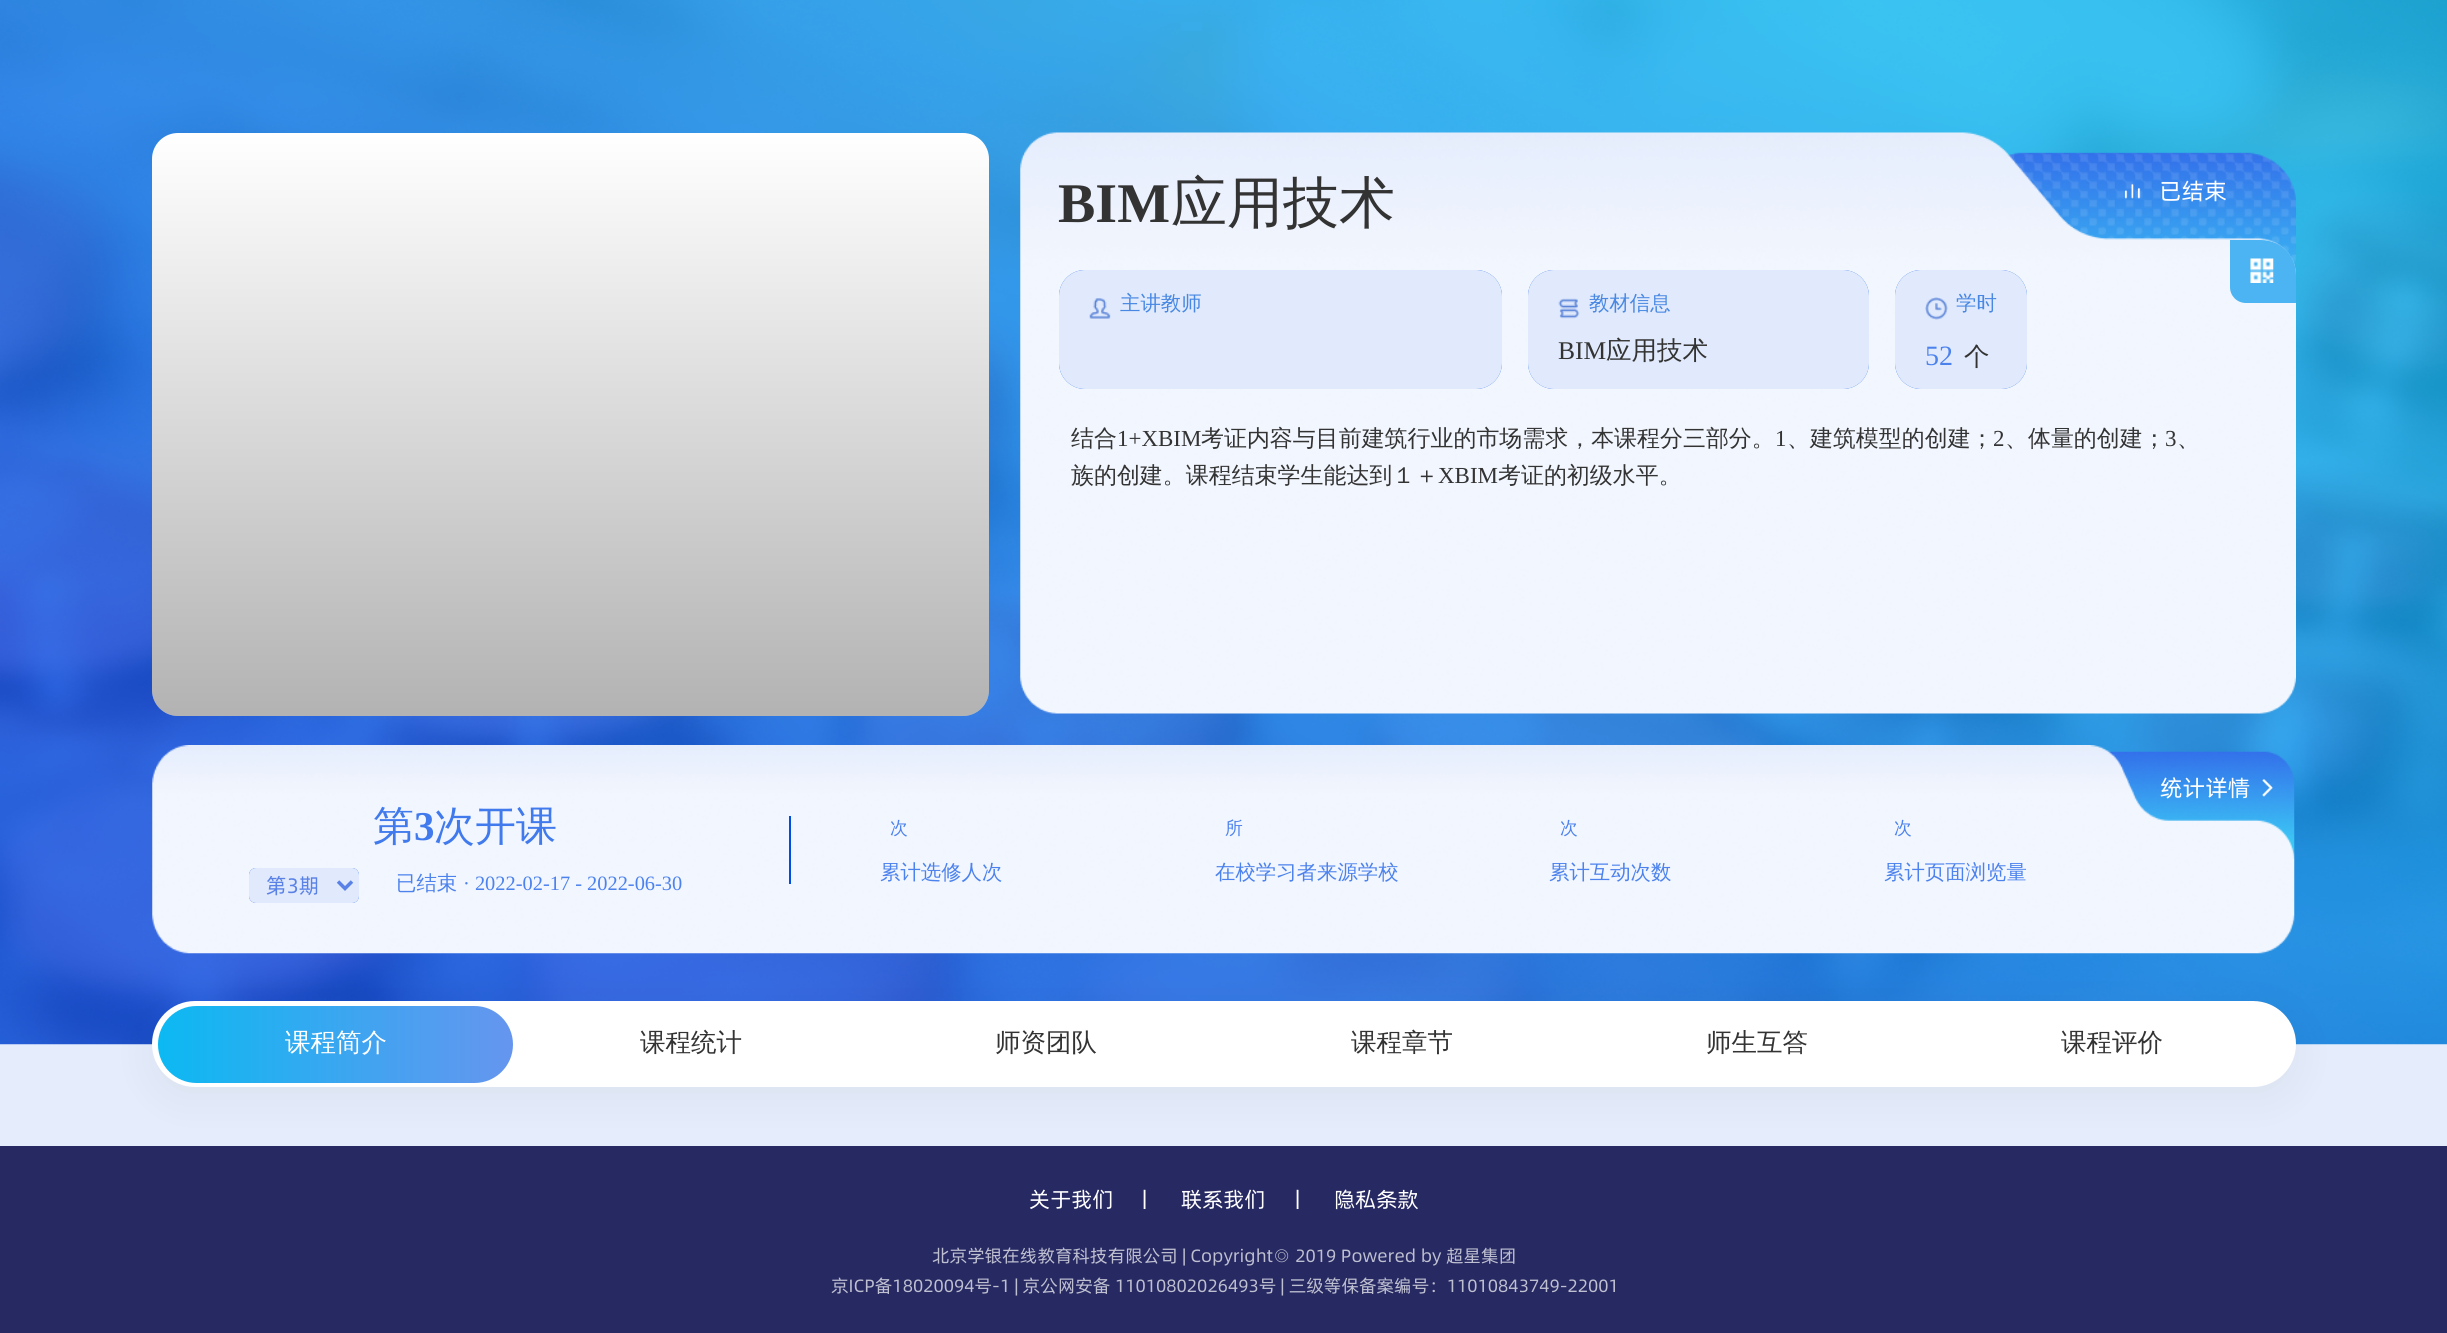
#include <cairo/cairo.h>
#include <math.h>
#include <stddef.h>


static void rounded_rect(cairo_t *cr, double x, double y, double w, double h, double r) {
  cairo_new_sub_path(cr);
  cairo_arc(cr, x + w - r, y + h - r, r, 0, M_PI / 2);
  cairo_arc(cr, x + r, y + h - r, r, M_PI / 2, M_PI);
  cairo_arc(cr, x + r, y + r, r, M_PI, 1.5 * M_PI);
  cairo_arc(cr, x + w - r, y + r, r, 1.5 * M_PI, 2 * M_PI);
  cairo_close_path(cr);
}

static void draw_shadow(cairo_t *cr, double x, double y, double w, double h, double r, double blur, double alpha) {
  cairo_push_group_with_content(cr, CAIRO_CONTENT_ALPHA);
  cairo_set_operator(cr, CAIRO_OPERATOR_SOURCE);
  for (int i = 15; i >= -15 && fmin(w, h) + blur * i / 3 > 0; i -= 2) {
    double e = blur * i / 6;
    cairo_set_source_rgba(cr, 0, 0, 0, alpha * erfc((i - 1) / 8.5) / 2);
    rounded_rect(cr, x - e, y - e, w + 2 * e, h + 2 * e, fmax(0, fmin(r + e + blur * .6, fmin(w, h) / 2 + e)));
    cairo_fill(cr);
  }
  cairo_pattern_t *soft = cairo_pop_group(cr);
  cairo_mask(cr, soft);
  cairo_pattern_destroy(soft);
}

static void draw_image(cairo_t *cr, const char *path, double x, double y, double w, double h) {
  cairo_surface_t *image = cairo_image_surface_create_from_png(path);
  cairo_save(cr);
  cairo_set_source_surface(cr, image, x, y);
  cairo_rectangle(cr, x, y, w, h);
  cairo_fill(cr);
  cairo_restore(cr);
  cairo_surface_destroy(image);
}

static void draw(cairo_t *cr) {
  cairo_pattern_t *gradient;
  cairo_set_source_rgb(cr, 229 / 255.0, 237 / 255.0, 252 / 255.0);
  cairo_paint(cr);
  draw_image(cr, "images/1.png", 0, 0, 2447, 1045);
  cairo_set_source_rgb(cr, 55 / 255.0, 172 / 255.0, 232 / 255.0);
  cairo_rectangle(cr, 1181, 22, 21, 9);
  cairo_fill(cr);
  cairo_set_source_rgb(cr, 1, 1, 1);
  rounded_rect(cr, 152, 133, 837, 583, 26);
  cairo_fill(cr);
  gradient = cairo_pattern_create_linear(571, 133, 571, 716);
  cairo_pattern_add_color_stop_rgba(gradient, 0, 0, 0, 0, 0);
  cairo_pattern_add_color_stop_rgba(gradient, 1, 0, 0, 0, 0.3);
  cairo_set_source(cr, gradient);
  cairo_pattern_destroy(gradient);
  rounded_rect(cr, 152, 133, 837, 583, 26);
  cairo_fill(cr);
  draw_image(cr, "images/2.png", 1020, 132, 1276, 582);
  draw_image(cr, "images/3.png", 2124, 183, 17, 16);
  cairo_set_source_rgb(cr, 76 / 255.0, 180 / 255.0, 242 / 255.0);
  cairo_new_path(cr);
  cairo_move_to(cr, 2230, 240);
  cairo_line_to(cr, 2261, 240);
  cairo_curve_to(cr, 2280.5, 240, 2296, 255.5, 2296, 275);
  cairo_line_to(cr, 2296, 303);
  cairo_line_to(cr, 2246, 303);
  cairo_curve_to(cr, 2237, 303, 2230, 296, 2230, 287);
  cairo_close_path(cr);
  cairo_fill(cr);
  draw_image(cr, "images/4.png", 2250, 258, 24, 25);
  cairo_set_source_rgb(cr, 0, 77 / 255.0, 229 / 255.0);
  rounded_rect(cr, 1059, 270, 443, 119, 26);
  cairo_fill(cr);
  cairo_set_source_rgba(cr, 1, 1, 1, 0.88);
  rounded_rect(cr, 1059, 270, 443, 119, 26);
  cairo_fill(cr);
  draw_image(cr, "images/5.png", 1089, 298, 22, 21);
  cairo_set_source_rgb(cr, 0, 77 / 255.0, 229 / 255.0);
  rounded_rect(cr, 1528, 270, 341, 119, 26);
  cairo_fill(cr);
  cairo_set_source_rgba(cr, 1, 1, 1, 0.88);
  rounded_rect(cr, 1528, 270, 341, 119, 26);
  cairo_fill(cr);
  draw_image(cr, "images/6.png", 1558, 298, 22, 21);
  cairo_set_source_rgb(cr, 0, 77 / 255.0, 229 / 255.0);
  rounded_rect(cr, 1895, 270, 132, 119, 26);
  cairo_fill(cr);
  cairo_set_source_rgba(cr, 1, 1, 1, 0.88);
  rounded_rect(cr, 1895, 270, 132, 119, 26);
  cairo_fill(cr);
  draw_image(cr, "images/7.png", 1925, 297, 23, 23);
  draw_image(cr, "images/8.png", 152, 745, 2143, 209);
  draw_image(cr, "images/9.png", 2262, 779, 11, 18);
  cairo_set_source_rgb(cr, 0, 77 / 255.0, 229 / 255.0);
  rounded_rect(cr, 249, 868, 110, 35, 7);
  cairo_fill(cr);
  cairo_set_source_rgba(cr, 1, 1, 1, 0.88);
  rounded_rect(cr, 249, 868, 110, 35, 7);
  cairo_fill(cr);
  cairo_new_path(cr);
  cairo_move_to(cr, 338, 881.5);
  cairo_line_to(cr, 345, 888.5);
  cairo_line_to(cr, 352, 881.5);
  cairo_set_source_rgb(cr, 89 / 255.0, 129 / 255.0, 230 / 255.0);
  cairo_set_line_width(cr, 3.5);
  cairo_stroke(cr);
  cairo_set_source_rgb(cr, 0, 77 / 255.0, 229 / 255.0);
  cairo_rectangle(cr, 789, 816, 2, 68);
  cairo_fill(cr);
  cairo_set_source_rgb(cr, 39 / 255.0, 41 / 255.0, 98 / 255.0);
  cairo_rectangle(cr, 0, 1146, 2447, 187);
  cairo_fill(cr);
  cairo_set_source_rgb(cr, 0, 0, 0);
  draw_shadow(cr, 152, 1012, 2144, 85, 42.5, 20.5, 0.05);
  cairo_set_source_rgb(cr, 1, 1, 1);
  rounded_rect(cr, 152, 1001, 2144, 86, 43);
  cairo_fill(cr);
  gradient = cairo_pattern_create_linear(158, 1045, 514, 1045);
  cairo_pattern_add_color_stop_rgba(gradient, 0, 12 / 255.0, 185 / 255.0, 242 / 255.0, 1);
  cairo_pattern_add_color_stop_rgba(gradient, 1, 102 / 255.0, 149 / 255.0, 239 / 255.0, 1);
  cairo_set_source(cr, gradient);
  cairo_pattern_destroy(gradient);
  rounded_rect(cr, 158, 1006, 355, 77, 38.5);
  cairo_fill(cr);
  cairo_select_font_face(cr, "Liberation Serif", CAIRO_FONT_SLANT_NORMAL, CAIRO_FONT_WEIGHT_BOLD);
  cairo_set_font_size(cr, 56);
  cairo_set_source_rgb(cr, 51 / 255.0, 51 / 255.0, 51 / 255.0);
  cairo_move_to(cr, 1058, 222);
  cairo_show_text(cr, "BIM");
  cairo_select_font_face(cr, "WenQuanYi Zen Hei Medium", CAIRO_FONT_SLANT_NORMAL, CAIRO_FONT_WEIGHT_NORMAL);
  cairo_move_to(cr, 1171, 222);
  cairo_show_text(cr, "应用技术");
  cairo_select_font_face(cr, "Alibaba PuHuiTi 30", CAIRO_FONT_SLANT_NORMAL, CAIRO_FONT_WEIGHT_NORMAL);
  cairo_set_font_size(cr, 22.95);
  cairo_set_source_rgb(cr, 1, 1, 1);
  cairo_move_to(cr, 2159, 199);
  cairo_show_text(cr, "已结束");
  cairo_select_font_face(cr, "WenQuanYi Zen Hei Medium", CAIRO_FONT_SLANT_NORMAL, CAIRO_FONT_WEIGHT_NORMAL);
  cairo_set_font_size(cr, 20.4);
  cairo_set_source_rgb(cr, 72 / 255.0, 136 / 255.0, 227 / 255.0);
  cairo_move_to(cr, 1120, 310);
  cairo_show_text(cr, "主讲教师");
  cairo_move_to(cr, 1589, 310);
  cairo_show_text(cr, "教材信息");
  cairo_select_font_face(cr, "Liberation Serif", CAIRO_FONT_SLANT_NORMAL, CAIRO_FONT_WEIGHT_NORMAL);
  cairo_set_font_size(cr, 25.5);
  cairo_set_source_rgb(cr, 51 / 255.0, 51 / 255.0, 51 / 255.0);
  cairo_move_to(cr, 1558, 359);
  cairo_show_text(cr, "BIM");
  cairo_select_font_face(cr, "WenQuanYi Zen Hei Medium", CAIRO_FONT_SLANT_NORMAL, CAIRO_FONT_WEIGHT_NORMAL);
  cairo_move_to(cr, 1606, 359);
  cairo_show_text(cr, "应用技术");
  cairo_set_font_size(cr, 20.4);
  cairo_set_source_rgb(cr, 72 / 255.0, 136 / 255.0, 227 / 255.0);
  cairo_move_to(cr, 1956, 310);
  cairo_show_text(cr, "学时");
  cairo_select_font_face(cr, "Liberation Serif", CAIRO_FONT_SLANT_NORMAL, CAIRO_FONT_WEIGHT_NORMAL);
  cairo_set_font_size(cr, 28);
  cairo_set_source_rgb(cr, 76 / 255.0, 130 / 255.0, 237 / 255.0);
  cairo_move_to(cr, 1925, 365);
  cairo_show_text(cr, "52");
  cairo_select_font_face(cr, "WenQuanYi Zen Hei Medium", CAIRO_FONT_SLANT_NORMAL, CAIRO_FONT_WEIGHT_NORMAL);
  cairo_set_font_size(cr, 25.5);
  cairo_set_source_rgb(cr, 51 / 255.0, 51 / 255.0, 51 / 255.0);
  cairo_move_to(cr, 1964, 365);
  cairo_show_text(cr, "个");
  cairo_set_font_size(cr, 22.95);
  cairo_move_to(cr, 1071, 446);
  cairo_show_text(cr, "结合");
  cairo_select_font_face(cr, "Liberation Serif", CAIRO_FONT_SLANT_NORMAL, CAIRO_FONT_WEIGHT_NORMAL);
  cairo_move_to(cr, 1117, 446);
  cairo_show_text(cr, "1+XBIM");
  cairo_select_font_face(cr, "WenQuanYi Zen Hei Medium", CAIRO_FONT_SLANT_NORMAL, CAIRO_FONT_WEIGHT_NORMAL);
  cairo_move_to(cr, 1201, 446);
  cairo_show_text(cr, "考证内容与目前建筑行业的市场需求，本课程分三部分。");
  cairo_select_font_face(cr, "Liberation Serif", CAIRO_FONT_SLANT_NORMAL, CAIRO_FONT_WEIGHT_NORMAL);
  cairo_move_to(cr, 1775, 446);
  cairo_show_text(cr, "1");
  cairo_select_font_face(cr, "WenQuanYi Zen Hei Medium", CAIRO_FONT_SLANT_NORMAL, CAIRO_FONT_WEIGHT_NORMAL);
  cairo_move_to(cr, 1787, 446);
  cairo_show_text(cr, "、建筑模型的创建；");
  cairo_select_font_face(cr, "Liberation Serif", CAIRO_FONT_SLANT_NORMAL, CAIRO_FONT_WEIGHT_NORMAL);
  cairo_move_to(cr, 1993, 446);
  cairo_show_text(cr, "2");
  cairo_select_font_face(cr, "WenQuanYi Zen Hei Medium", CAIRO_FONT_SLANT_NORMAL, CAIRO_FONT_WEIGHT_NORMAL);
  cairo_move_to(cr, 2005, 446);
  cairo_show_text(cr, "、体量的创建；");
  cairo_select_font_face(cr, "Liberation Serif", CAIRO_FONT_SLANT_NORMAL, CAIRO_FONT_WEIGHT_NORMAL);
  cairo_move_to(cr, 2165, 446);
  cairo_show_text(cr, "3");
  cairo_select_font_face(cr, "WenQuanYi Zen Hei Medium", CAIRO_FONT_SLANT_NORMAL, CAIRO_FONT_WEIGHT_NORMAL);
  cairo_move_to(cr, 2177, 446);
  cairo_show_text(cr, "、");
  cairo_move_to(cr, 1071, 483);
  cairo_show_text(cr, "族的创建。课程结束学生能达到１＋");
  cairo_select_font_face(cr, "Liberation Serif", CAIRO_FONT_SLANT_NORMAL, CAIRO_FONT_WEIGHT_NORMAL);
  cairo_move_to(cr, 1438, 483);
  cairo_show_text(cr, "XBIM");
  cairo_select_font_face(cr, "WenQuanYi Zen Hei Medium", CAIRO_FONT_SLANT_NORMAL, CAIRO_FONT_WEIGHT_NORMAL);
  cairo_move_to(cr, 1498, 483);
  cairo_show_text(cr, "考证的初级水平。");
  cairo_select_font_face(cr, "Alibaba PuHuiTi 30", CAIRO_FONT_SLANT_NORMAL, CAIRO_FONT_WEIGHT_NORMAL);
  cairo_set_source_rgb(cr, 1, 1, 1);
  cairo_move_to(cr, 2160, 796);
  cairo_show_text(cr, "统计详情");
  cairo_select_font_face(cr, "WenQuanYi Zen Hei Medium", CAIRO_FONT_SLANT_NORMAL, CAIRO_FONT_WEIGHT_NORMAL);
  cairo_set_font_size(cr, 41);
  cairo_set_source_rgb(cr, 64 / 255.0, 122 / 255.0, 236 / 255.0);
  cairo_move_to(cr, 373, 840);
  cairo_show_text(cr, "第");
  cairo_select_font_face(cr, "Liberation Serif", CAIRO_FONT_SLANT_NORMAL, CAIRO_FONT_WEIGHT_BOLD);
  cairo_move_to(cr, 414, 840);
  cairo_show_text(cr, "3");
  cairo_select_font_face(cr, "WenQuanYi Zen Hei Medium", CAIRO_FONT_SLANT_NORMAL, CAIRO_FONT_WEIGHT_NORMAL);
  cairo_move_to(cr, 434, 840);
  cairo_show_text(cr, "次开课");
  cairo_select_font_face(cr, "Alibaba PuHuiTi 30", CAIRO_FONT_SLANT_NORMAL, CAIRO_FONT_WEIGHT_NORMAL);
  cairo_set_font_size(cr, 21);
  cairo_set_source_rgb(cr, 89 / 255.0, 129 / 255.0, 230 / 255.0);
  cairo_move_to(cr, 266, 893);
  cairo_show_text(cr, "第3期");
  cairo_select_font_face(cr, "WenQuanYi Zen Hei Medium", CAIRO_FONT_SLANT_NORMAL, CAIRO_FONT_WEIGHT_NORMAL);
  cairo_set_font_size(cr, 20.4);
  cairo_set_source_rgb(cr, 76 / 255.0, 130 / 255.0, 237 / 255.0);
  cairo_move_to(cr, 396, 890);
  cairo_show_text(cr, "已结束");
  cairo_select_font_face(cr, "Liberation Serif", CAIRO_FONT_SLANT_NORMAL, CAIRO_FONT_WEIGHT_NORMAL);
  cairo_move_to(cr, 463, 890);
  cairo_show_text(cr, "· 2022-02-17 - 2022-06-30");
  cairo_select_font_face(cr, "WenQuanYi Zen Hei Medium", CAIRO_FONT_SLANT_NORMAL, CAIRO_FONT_WEIGHT_NORMAL);
  cairo_set_font_size(cr, 17.85);
  cairo_move_to(cr, 890, 834);
  cairo_show_text(cr, "次");
  cairo_set_font_size(cr, 20.4);
  cairo_move_to(cr, 880, 879);
  cairo_show_text(cr, "累计选修人次");
  cairo_set_font_size(cr, 17.85);
  cairo_move_to(cr, 1225, 834);
  cairo_show_text(cr, "所");
  cairo_set_font_size(cr, 20.4);
  cairo_move_to(cr, 1215, 879);
  cairo_show_text(cr, "在校学习者来源学校");
  cairo_set_font_size(cr, 17.85);
  cairo_move_to(cr, 1560, 834);
  cairo_show_text(cr, "次");
  cairo_set_font_size(cr, 20.4);
  cairo_move_to(cr, 1549, 879);
  cairo_show_text(cr, "累计互动次数");
  cairo_set_font_size(cr, 17.85);
  cairo_move_to(cr, 1894, 834);
  cairo_show_text(cr, "次");
  cairo_set_font_size(cr, 20.4);
  cairo_move_to(cr, 1884, 879);
  cairo_show_text(cr, "累计页面浏览量");
  cairo_set_font_size(cr, 25.5);
  cairo_set_source_rgb(cr, 1, 1, 1);
  cairo_move_to(cr, 285, 1051);
  cairo_show_text(cr, "课程简介");
  cairo_set_source_rgb(cr, 51 / 255.0, 51 / 255.0, 51 / 255.0);
  cairo_move_to(cr, 640, 1051);
  cairo_show_text(cr, "课程统计");
  cairo_move_to(cr, 995, 1051);
  cairo_show_text(cr, "师资团队");
  cairo_move_to(cr, 1351, 1051);
  cairo_show_text(cr, "课程章节");
  cairo_move_to(cr, 1706, 1051);
  cairo_show_text(cr, "师生互答");
  cairo_move_to(cr, 2061, 1051);
  cairo_show_text(cr, "课程评价");
  cairo_select_font_face(cr, "Alibaba PuHuiTi 30", CAIRO_FONT_SLANT_NORMAL, CAIRO_FONT_WEIGHT_NORMAL);
  cairo_set_font_size(cr, 21.5);
  cairo_set_source_rgb(cr, 1, 1, 1);
  cairo_move_to(cr, 1029, 1207);
  cairo_show_text(cr, "关于我们");
  cairo_move_to(cr, 1134, 1207);
  cairo_show_text(cr, "丨");
  cairo_move_to(cr, 1181, 1207);
  cairo_show_text(cr, "联系我们");
  cairo_move_to(cr, 1287, 1207);
  cairo_show_text(cr, "丨");
  cairo_move_to(cr, 1334, 1207);
  cairo_show_text(cr, "隐私条款");
  cairo_set_font_size(cr, 17.85);
  cairo_set_source_rgb(cr, 190 / 255.0, 191 / 255.0, 208 / 255.0);
  cairo_move_to(cr, 932, 1262);
  cairo_show_text(cr, "北京学银在线教育科技有限公司 | Copyright◎ 2019 Powered by 超星集团");
  cairo_move_to(cr, 831, 1292);
  cairo_show_text(cr, "京ICP备18020094号-1 | 京公网安备 11010802026493号 | 三级等保备案编号：11010843749-22001");
}

int main(void) {
  cairo_surface_t *surface = cairo_image_surface_create(CAIRO_FORMAT_RGB24, 2447, 1333);
  cairo_t *cr = cairo_create(surface);
  cairo_font_options_t *options = cairo_font_options_create();
  cairo_font_options_set_hint_metrics(options, CAIRO_HINT_METRICS_OFF);
  cairo_font_options_set_hint_style(options, CAIRO_HINT_STYLE_NONE);
  cairo_set_font_options(cr, options);
  cairo_set_miter_limit(cr, 4);
  draw(cr);
  cairo_surface_write_to_png(surface, "out.png");
  cairo_font_options_destroy(options);
  cairo_destroy(cr);
  cairo_surface_destroy(surface);
  return 0;
}
